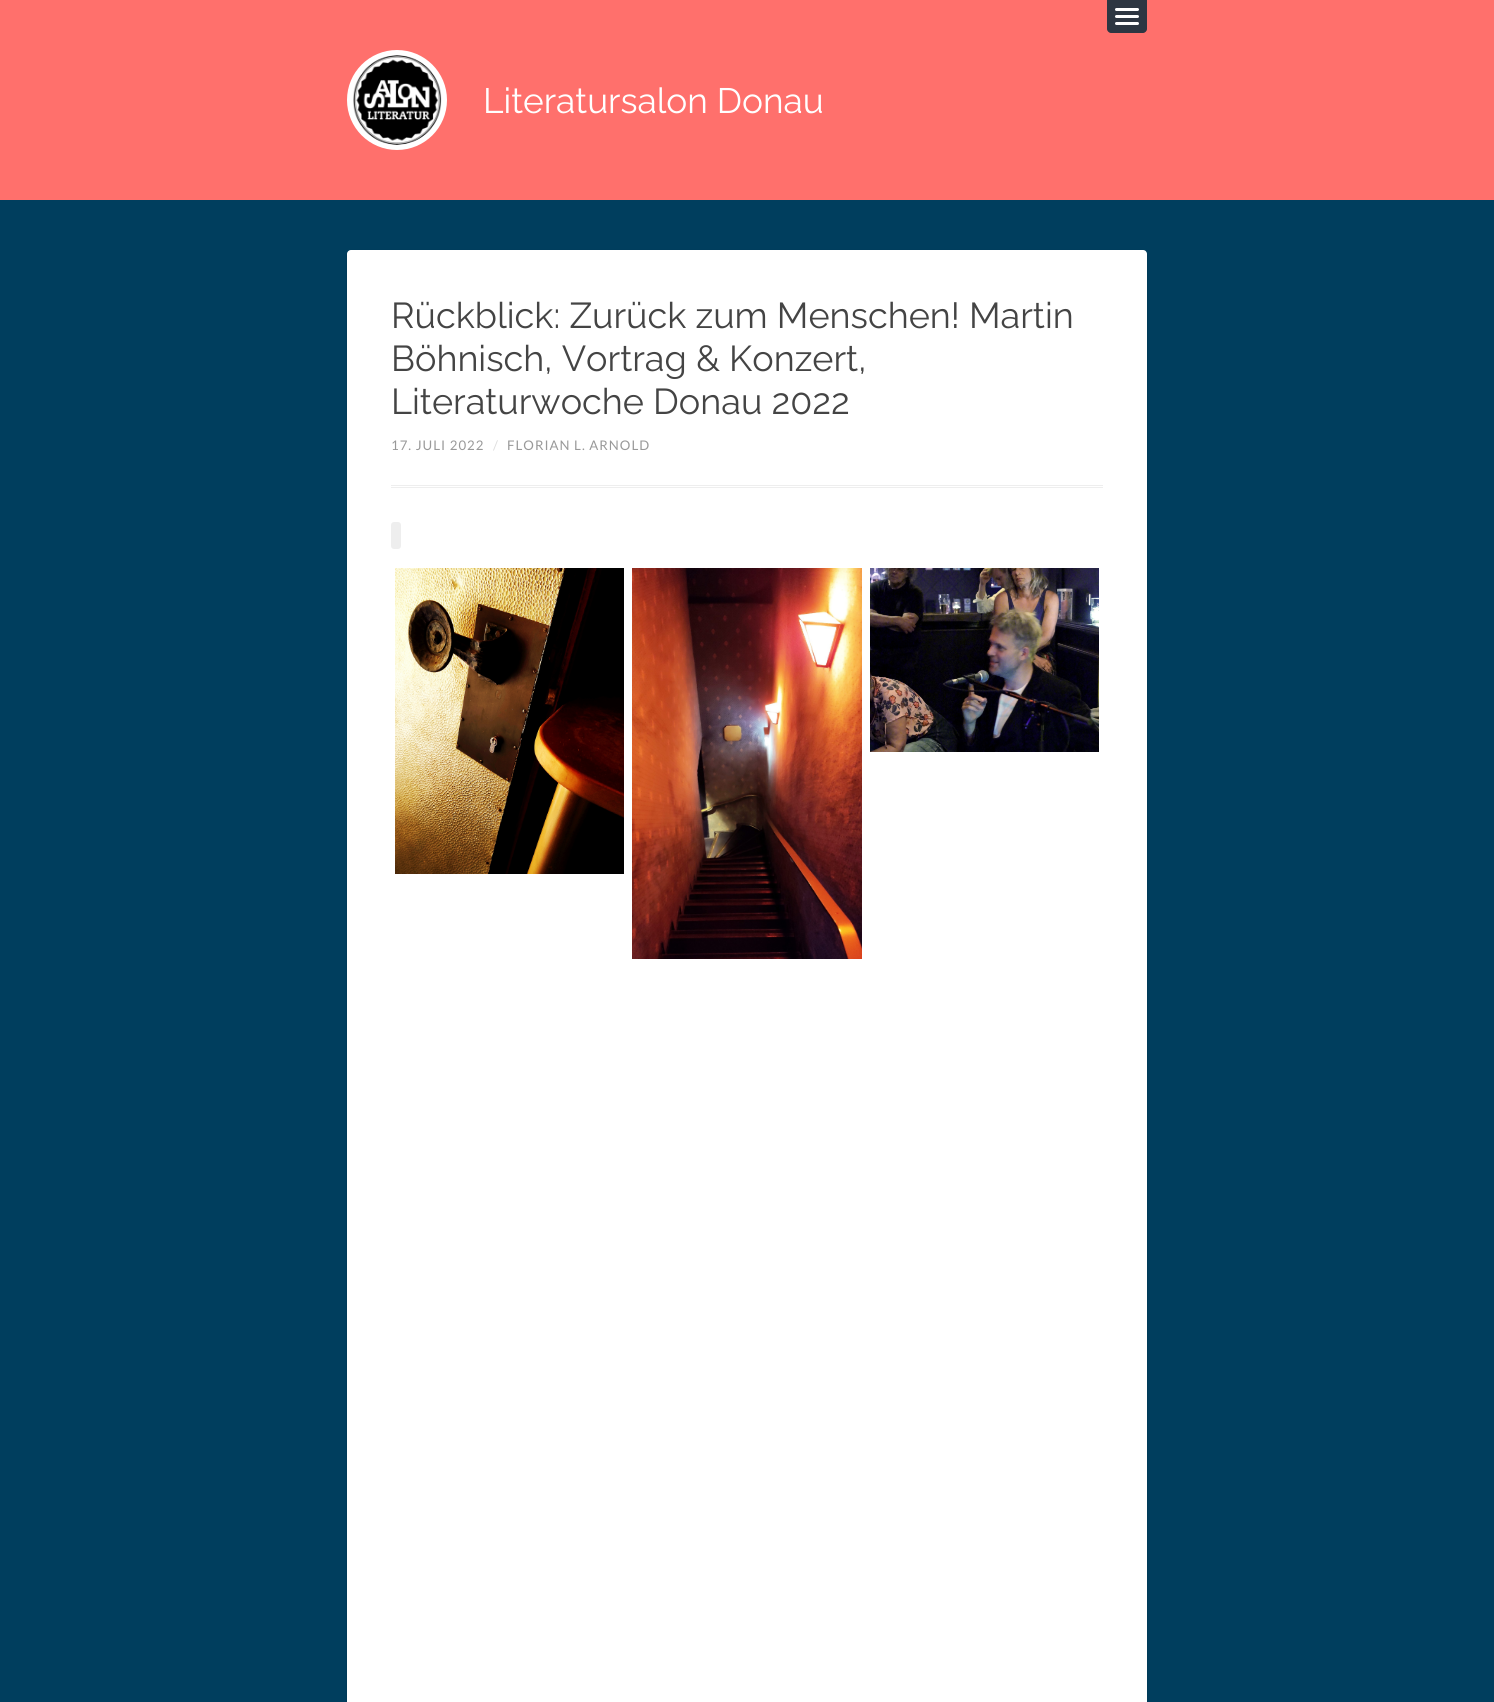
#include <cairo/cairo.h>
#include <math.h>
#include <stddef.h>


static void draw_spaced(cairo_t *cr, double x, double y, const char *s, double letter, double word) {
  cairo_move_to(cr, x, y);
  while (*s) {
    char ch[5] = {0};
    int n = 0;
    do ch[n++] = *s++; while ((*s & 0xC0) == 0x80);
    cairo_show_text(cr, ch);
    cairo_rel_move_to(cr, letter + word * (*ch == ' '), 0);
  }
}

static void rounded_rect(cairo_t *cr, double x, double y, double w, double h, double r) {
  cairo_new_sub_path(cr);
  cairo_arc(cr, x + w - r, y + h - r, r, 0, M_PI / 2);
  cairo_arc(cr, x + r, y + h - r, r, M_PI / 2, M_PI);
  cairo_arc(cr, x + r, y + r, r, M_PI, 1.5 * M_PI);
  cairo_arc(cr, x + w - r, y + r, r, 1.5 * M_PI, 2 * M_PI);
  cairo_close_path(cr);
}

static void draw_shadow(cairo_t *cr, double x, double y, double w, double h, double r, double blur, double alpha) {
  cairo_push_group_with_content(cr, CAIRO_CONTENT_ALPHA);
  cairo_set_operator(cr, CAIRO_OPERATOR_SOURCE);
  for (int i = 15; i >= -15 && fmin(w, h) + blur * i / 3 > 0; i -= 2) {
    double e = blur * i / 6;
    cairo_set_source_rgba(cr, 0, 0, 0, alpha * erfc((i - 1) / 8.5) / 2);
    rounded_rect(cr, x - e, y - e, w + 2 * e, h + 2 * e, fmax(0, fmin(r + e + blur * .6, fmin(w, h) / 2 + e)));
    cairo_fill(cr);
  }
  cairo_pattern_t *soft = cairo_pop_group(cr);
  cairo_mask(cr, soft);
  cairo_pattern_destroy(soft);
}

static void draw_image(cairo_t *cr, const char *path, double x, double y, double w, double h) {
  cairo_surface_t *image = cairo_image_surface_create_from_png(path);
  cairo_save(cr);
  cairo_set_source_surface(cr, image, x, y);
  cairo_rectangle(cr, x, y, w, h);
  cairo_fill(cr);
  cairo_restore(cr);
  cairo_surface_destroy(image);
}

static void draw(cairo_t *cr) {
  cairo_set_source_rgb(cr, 0, 62 / 255.0, 94 / 255.0);
  cairo_paint(cr);
  cairo_set_source_rgb(cr, 1, 112 / 255.0, 108 / 255.0);
  cairo_rectangle(cr, 0, 0, 1494, 200);
  cairo_fill(cr);
  cairo_set_source_rgb(cr, 45 / 255.0, 54 / 255.0, 66 / 255.0);
  cairo_new_path(cr);
  cairo_move_to(cr, 1107, 0);
  cairo_line_to(cr, 1147, 0);
  cairo_line_to(cr, 1147, 29);
  cairo_curve_to(cr, 1147, 31, 1145, 33, 1143, 33);
  cairo_line_to(cr, 1111, 33);
  cairo_curve_to(cr, 1109, 33, 1107, 31, 1107, 29);
  cairo_close_path(cr);
  cairo_fill(cr);
  cairo_set_source_rgb(cr, 1, 1, 1);
  rounded_rect(cr, 1115, 8, 24, 3, 1.5);
  cairo_fill(cr);
  rounded_rect(cr, 1115, 15, 24, 3, 1.5);
  cairo_fill(cr);
  rounded_rect(cr, 1115, 22, 24, 3, 1.5);
  cairo_fill(cr);
  cairo_arc(cr, 397, 100, 47.5, 0, 2 * M_PI);
  cairo_fill_preserve(cr);
  cairo_set_line_width(cr, 5);
  cairo_stroke(cr);
  draw_image(cr, "images/1.png", 353, 55, 89, 90);
  cairo_set_source_rgb(cr, 0, 0, 0);
  draw_shadow(cr, 347, 251, 800, 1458, 4, 1, 0.2);
  cairo_set_source_rgb(cr, 1, 1, 1);
  rounded_rect(cr, 347, 250, 800, 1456, 4);
  cairo_fill(cr);
  cairo_set_source_rgb(cr, 238 / 255.0, 238 / 255.0, 238 / 255.0);
  cairo_rectangle(cr, 391, 485, 712, 1);
  cairo_fill(cr);
  cairo_rectangle(cr, 391, 487, 712, 1);
  cairo_fill(cr);
  rounded_rect(cr, 391, 522, 10, 27, 3);
  cairo_fill(cr);
  draw_image(cr, "images/2.png", 395, 568, 229, 306);
  draw_image(cr, "images/3.png", 632, 568, 230, 391);
  draw_image(cr, "images/4.png", 870, 568, 229, 184);
  cairo_select_font_face(cr, "Raleway Thin", CAIRO_FONT_SLANT_NORMAL, CAIRO_FONT_WEIGHT_NORMAL);
  cairo_set_font_size(cr, 35.25);
  cairo_set_source_rgb(cr, 1, 1, 1);
  cairo_move_to(cr, 483, 113);
  cairo_show_text(cr, "Literatursalon Donau");
  cairo_set_font_size(cr, 36);
  cairo_set_source_rgb(cr, 68 / 255.0, 68 / 255.0, 68 / 255.0);
  cairo_move_to(cr, 391, 328);
  cairo_show_text(cr, "Rückblick: Zurück zum Menschen! Martin");
  cairo_move_to(cr, 391, 371);
  cairo_show_text(cr, "Böhnisch, Vortrag & Konzert,");
  cairo_move_to(cr, 391, 414);
  cairo_show_text(cr, "Literaturwoche Donau 2022");
  cairo_select_font_face(cr, "Lato", CAIRO_FONT_SLANT_NORMAL, CAIRO_FONT_WEIGHT_NORMAL);
  cairo_set_font_size(cr, 13.25);
  cairo_set_source_rgb(cr, 153 / 255.0, 153 / 255.0, 153 / 255.0);
  draw_spaced(cr, 391, 450, "17. JULI 2022", 1, 0);
  cairo_set_source_rgb(cr, 221 / 255.0, 221 / 255.0, 221 / 255.0);
  draw_spaced(cr, 493, 450, "/", 1, 0);
  cairo_set_source_rgb(cr, 153 / 255.0, 153 / 255.0, 153 / 255.0);
  draw_spaced(cr, 507, 450, "FLORIAN L. ARNOLD", 1, 0);
}

int main(void) {
  cairo_surface_t *surface = cairo_image_surface_create(CAIRO_FORMAT_RGB24, 1494, 1702);
  cairo_t *cr = cairo_create(surface);
  cairo_font_options_t *options = cairo_font_options_create();
  cairo_font_options_set_hint_metrics(options, CAIRO_HINT_METRICS_OFF);
  cairo_font_options_set_hint_style(options, CAIRO_HINT_STYLE_NONE);
  cairo_set_font_options(cr, options);
  cairo_set_miter_limit(cr, 4);
  draw(cr);
  cairo_surface_write_to_png(surface, "out.png");
  cairo_font_options_destroy(options);
  cairo_destroy(cr);
  cairo_surface_destroy(surface);
  return 0;
}
